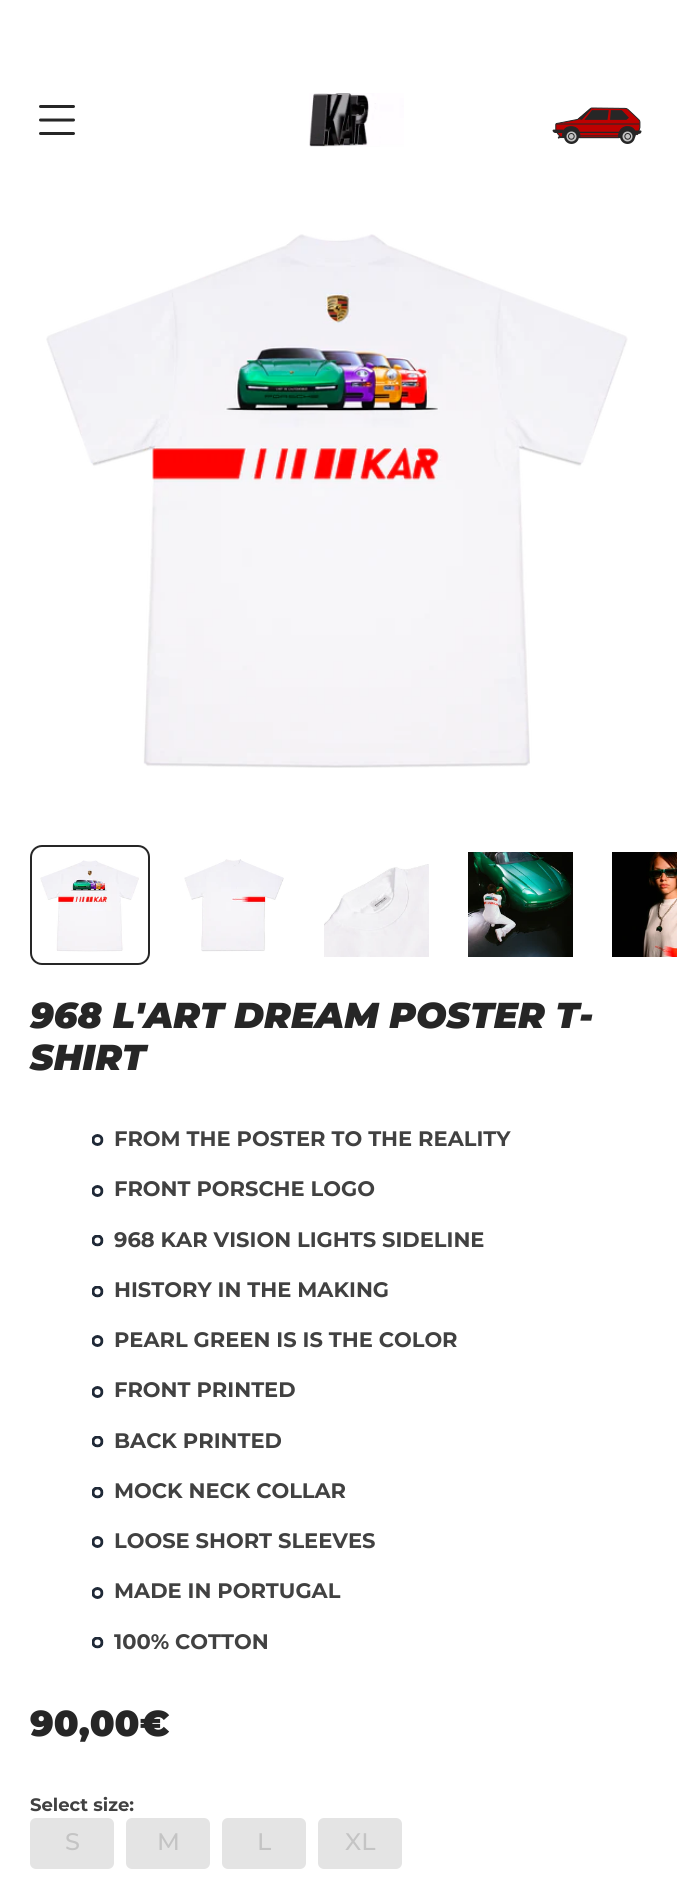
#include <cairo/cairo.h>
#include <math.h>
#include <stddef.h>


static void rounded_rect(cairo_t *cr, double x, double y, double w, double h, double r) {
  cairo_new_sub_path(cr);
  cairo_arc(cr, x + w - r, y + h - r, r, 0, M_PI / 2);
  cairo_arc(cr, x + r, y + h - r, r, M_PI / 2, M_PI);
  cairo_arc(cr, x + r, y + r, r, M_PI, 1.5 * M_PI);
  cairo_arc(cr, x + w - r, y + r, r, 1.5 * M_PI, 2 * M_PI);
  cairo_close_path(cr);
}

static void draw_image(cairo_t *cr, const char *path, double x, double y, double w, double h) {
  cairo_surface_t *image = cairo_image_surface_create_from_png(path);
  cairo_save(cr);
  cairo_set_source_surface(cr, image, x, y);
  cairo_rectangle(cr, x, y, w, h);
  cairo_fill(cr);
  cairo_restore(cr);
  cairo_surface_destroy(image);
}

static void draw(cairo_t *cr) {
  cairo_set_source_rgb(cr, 1, 1, 1);
  cairo_paint(cr);
  draw_image(cr, "images/1.png", 39, 105, 36, 30);
  draw_image(cr, "images/2.png", 309, 93, 95, 54);
  draw_image(cr, "images/3.png", 552, 107, 90, 37);
  draw_image(cr, "images/4.png", 46, 234, 582, 534);
  rounded_rect(cr, 31, 846, 118, 118, 11);
  cairo_set_source_rgb(cr, 38 / 255.0, 38 / 255.0, 38 / 255.0);
  cairo_stroke(cr);
  draw_image(cr, "images/5.png", 40, 860, 99, 92);
  draw_image(cr, "images/6.png", 184, 859, 100, 93);
  draw_image(cr, "images/7.png", 324, 864, 105, 93);
  draw_image(cr, "images/8.png", 468, 852, 105, 105);
  draw_image(cr, "images/9.png", 612, 852, 65, 105);
  draw_image(cr, "images/10.png", 92, 1134, 12, 12);
  draw_image(cr, "images/10.png", 92, 1185, 12, 12);
  draw_image(cr, "images/11.png", 92, 1235, 12, 12);
  draw_image(cr, "images/11.png", 92, 1286, 12, 12);
  draw_image(cr, "images/10.png", 92, 1335, 12, 12);
  draw_image(cr, "images/10.png", 92, 1386, 12, 12);
  draw_image(cr, "images/11.png", 92, 1436, 12, 12);
  draw_image(cr, "images/11.png", 92, 1487, 12, 12);
  draw_image(cr, "images/10.png", 92, 1536, 12, 12);
  draw_image(cr, "images/10.png", 92, 1587, 12, 12);
  draw_image(cr, "images/11.png", 92, 1637, 12, 12);
  cairo_set_source_rgb(cr, 228 / 255.0, 228 / 255.0, 228 / 255.0);
  rounded_rect(cr, 31, 1819, 82, 49, 5);
  cairo_fill_preserve(cr);
  cairo_stroke(cr);
  rounded_rect(cr, 127, 1819, 82, 49, 5);
  cairo_fill_preserve(cr);
  cairo_stroke(cr);
  rounded_rect(cr, 223, 1819, 82, 49, 5);
  cairo_fill_preserve(cr);
  cairo_stroke(cr);
  rounded_rect(cr, 319, 1819, 82, 49, 5);
  cairo_fill_preserve(cr);
  cairo_stroke(cr);
  cairo_select_font_face(cr, "Montserrat Black", CAIRO_FONT_SLANT_ITALIC, CAIRO_FONT_WEIGHT_NORMAL);
  cairo_set_font_size(cr, 36);
  cairo_set_source_rgb(cr, 38 / 255.0, 38 / 255.0, 38 / 255.0);
  cairo_move_to(cr, 30, 1028);
  cairo_show_text(cr, "968 L'ART DREAM POSTER T-");
  cairo_move_to(cr, 30, 1070);
  cairo_show_text(cr, "SHIRT");
  cairo_select_font_face(cr, "Montserrat", CAIRO_FONT_SLANT_NORMAL, CAIRO_FONT_WEIGHT_BOLD);
  cairo_set_font_size(cr, 21);
  cairo_set_source_rgb(cr, 65 / 255.0, 65 / 255.0, 65 / 255.0);
  cairo_move_to(cr, 114, 1146);
  cairo_show_text(cr, "FROM THE POSTER TO THE REALITY");
  cairo_move_to(cr, 114, 1196);
  cairo_show_text(cr, "FRONT PORSCHE LOGO");
  cairo_move_to(cr, 114, 1247);
  cairo_show_text(cr, "968 KAR VISION LIGHTS SIDELINE");
  cairo_move_to(cr, 114, 1297);
  cairo_show_text(cr, "HISTORY IN THE MAKING");
  cairo_move_to(cr, 114, 1347);
  cairo_show_text(cr, "PEARL GREEN IS IS THE COLOR");
  cairo_move_to(cr, 114, 1397);
  cairo_show_text(cr, "FRONT PRINTED");
  cairo_move_to(cr, 114, 1448);
  cairo_show_text(cr, "BACK PRINTED");
  cairo_move_to(cr, 114, 1498);
  cairo_show_text(cr, "MOCK NECK COLLAR");
  cairo_move_to(cr, 114, 1548);
  cairo_show_text(cr, "LOOSE SHORT SLEEVES");
  cairo_move_to(cr, 114, 1598);
  cairo_show_text(cr, "MADE IN PORTUGAL");
  cairo_move_to(cr, 114, 1649);
  cairo_show_text(cr, "100% COTTON");
  cairo_select_font_face(cr, "Montserrat Black", CAIRO_FONT_SLANT_NORMAL, CAIRO_FONT_WEIGHT_NORMAL);
  cairo_set_font_size(cr, 36);
  cairo_set_source_rgb(cr, 38 / 255.0, 38 / 255.0, 38 / 255.0);
  cairo_move_to(cr, 30, 1736);
  cairo_show_text(cr, "90,00€");
  cairo_select_font_face(cr, "Montserrat", CAIRO_FONT_SLANT_NORMAL, CAIRO_FONT_WEIGHT_BOLD);
  cairo_set_font_size(cr, 18);
  cairo_set_source_rgb(cr, 65 / 255.0, 65 / 255.0, 65 / 255.0);
  cairo_move_to(cr, 30, 1811);
  cairo_show_text(cr, "Select size:");
  cairo_select_font_face(cr, "Montserrat Medium", CAIRO_FONT_SLANT_NORMAL, CAIRO_FONT_WEIGHT_NORMAL);
  cairo_set_font_size(cr, 24);
  cairo_set_source_rgb(cr, 196 / 255.0, 196 / 255.0, 196 / 255.0);
  cairo_move_to(cr, 65, 1850);
  cairo_show_text(cr, "S");
  cairo_move_to(cr, 157, 1850);
  cairo_show_text(cr, "M");
  cairo_move_to(cr, 257, 1850);
  cairo_show_text(cr, "L");
  cairo_move_to(cr, 345, 1850);
  cairo_show_text(cr, "XL");
}

int main(void) {
  cairo_surface_t *surface = cairo_image_surface_create(CAIRO_FORMAT_RGB24, 677, 1878);
  cairo_t *cr = cairo_create(surface);
  cairo_font_options_t *options = cairo_font_options_create();
  cairo_font_options_set_hint_metrics(options, CAIRO_HINT_METRICS_OFF);
  cairo_font_options_set_hint_style(options, CAIRO_HINT_STYLE_NONE);
  cairo_set_font_options(cr, options);
  cairo_set_miter_limit(cr, 4);
  draw(cr);
  cairo_surface_write_to_png(surface, "out.png");
  cairo_font_options_destroy(options);
  cairo_destroy(cr);
  cairo_surface_destroy(surface);
  return 0;
}
